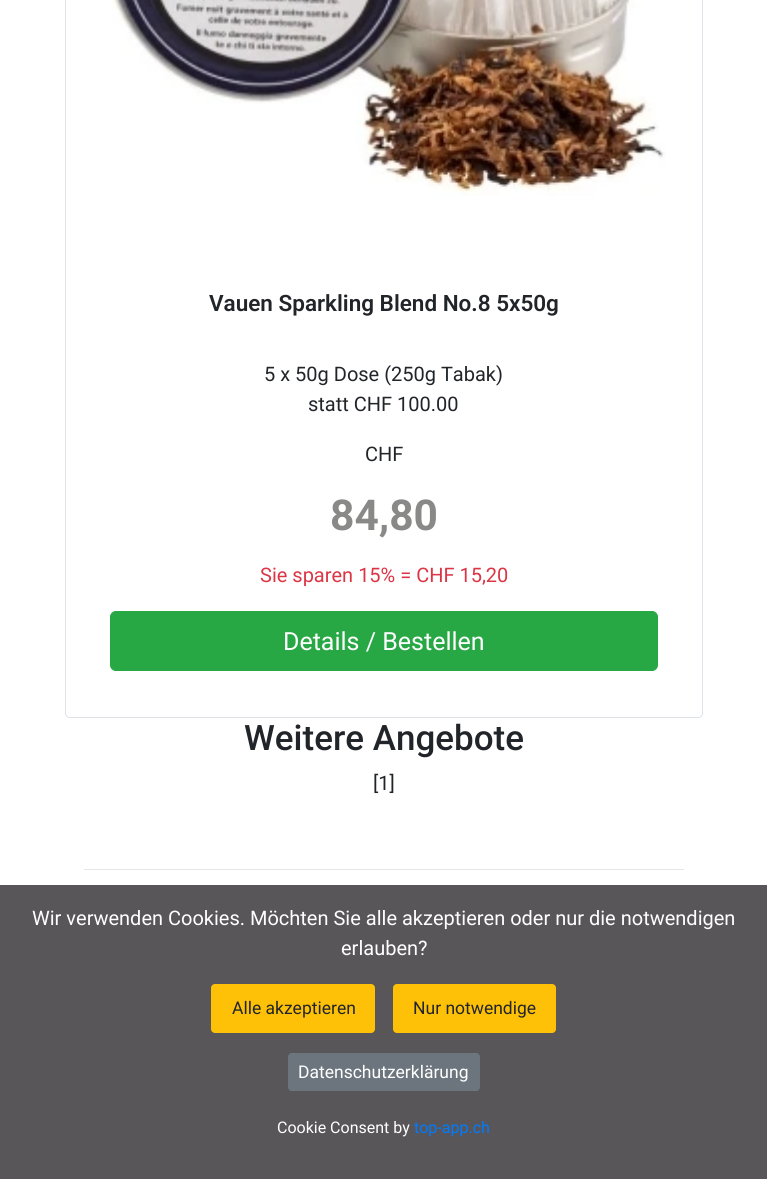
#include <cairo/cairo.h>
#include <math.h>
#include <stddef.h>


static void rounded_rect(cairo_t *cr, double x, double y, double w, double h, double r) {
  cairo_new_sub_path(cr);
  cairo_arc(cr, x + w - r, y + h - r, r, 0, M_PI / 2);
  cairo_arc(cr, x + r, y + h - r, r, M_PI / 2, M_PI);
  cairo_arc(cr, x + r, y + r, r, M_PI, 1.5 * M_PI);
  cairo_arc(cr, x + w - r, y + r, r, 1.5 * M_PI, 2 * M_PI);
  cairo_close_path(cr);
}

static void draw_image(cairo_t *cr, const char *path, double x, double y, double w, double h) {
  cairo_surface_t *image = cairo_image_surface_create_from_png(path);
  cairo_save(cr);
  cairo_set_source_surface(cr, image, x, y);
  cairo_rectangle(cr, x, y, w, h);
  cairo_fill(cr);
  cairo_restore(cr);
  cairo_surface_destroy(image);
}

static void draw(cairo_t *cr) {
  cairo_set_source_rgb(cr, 1, 1, 1);
  cairo_paint(cr);
  rounded_rect(cr, 65.5, -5.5, 637, 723, 4.5);
  cairo_set_source_rgb(cr, 222 / 255.0, 226 / 255.0, 230 / 255.0);
  cairo_set_line_width(cr, 1);
  cairo_stroke(cr);
  draw_image(cr, "images/1.png", 112, 0, 554, 196);
  cairo_set_source_rgb(cr, 40 / 255.0, 167 / 255.0, 69 / 255.0);
  rounded_rect(cr, 110.5, 611.5, 547, 59, 5.5);
  cairo_fill_preserve(cr);
  cairo_stroke(cr);
  cairo_set_source_rgb(cr, 230 / 255.0, 230 / 255.0, 230 / 255.0);
  cairo_rectangle(cr, 84, 869, 600, 1);
  cairo_fill(cr);
  cairo_set_source_rgb(cr, 88 / 255.0, 86 / 255.0, 88 / 255.0);
  cairo_rectangle(cr, 0, 885, 767, 294);
  cairo_fill(cr);
  cairo_set_source_rgb(cr, 1, 193 / 255.0, 7 / 255.0);
  rounded_rect(cr, 211.5, 984.5, 163, 48, 3.5);
  cairo_fill_preserve(cr);
  cairo_stroke(cr);
  rounded_rect(cr, 393.5, 984.5, 162, 48, 3.5);
  cairo_fill_preserve(cr);
  cairo_stroke(cr);
  cairo_set_source_rgb(cr, 108 / 255.0, 117 / 255.0, 125 / 255.0);
  rounded_rect(cr, 288.5, 1053.5, 191, 37, 3.5);
  cairo_fill_preserve(cr);
  cairo_stroke(cr);
  cairo_select_font_face(cr, "Roboto SemiBold", CAIRO_FONT_SLANT_NORMAL, CAIRO_FONT_WEIGHT_NORMAL);
  cairo_set_font_size(cr, 22.5);
  cairo_set_source_rgb(cr, 33 / 255.0, 37 / 255.0, 41 / 255.0);
  cairo_move_to(cr, 209, 311);
  cairo_show_text(cr, "Vauen Sparkling Blend No.8 5x50g");
  cairo_select_font_face(cr, "Roboto", CAIRO_FONT_SLANT_NORMAL, CAIRO_FONT_WEIGHT_NORMAL);
  cairo_set_font_size(cr, 20);
  cairo_move_to(cr, 264, 381);
  cairo_show_text(cr, "5 x 50g Dose (250g Tabak)");
  cairo_move_to(cr, 308, 411);
  cairo_show_text(cr, "statt CHF 100.00");
  cairo_move_to(cr, 365, 461);
  cairo_show_text(cr, "CHF");
  cairo_select_font_face(cr, "Roboto", CAIRO_FONT_SLANT_NORMAL, CAIRO_FONT_WEIGHT_BOLD);
  cairo_set_font_size(cr, 42.5);
  cairo_set_source_rgb(cr, 137 / 255.0, 137 / 255.0, 136 / 255.0);
  cairo_move_to(cr, 330, 530);
  cairo_show_text(cr, "84,80");
  cairo_select_font_face(cr, "Roboto", CAIRO_FONT_SLANT_NORMAL, CAIRO_FONT_WEIGHT_NORMAL);
  cairo_set_font_size(cr, 20);
  cairo_set_source_rgb(cr, 220 / 255.0, 53 / 255.0, 69 / 255.0);
  cairo_move_to(cr, 260, 582);
  cairo_show_text(cr, "Sie sparen 15% = CHF 15,20");
  cairo_set_font_size(cr, 25);
  cairo_set_source_rgb(cr, 1, 1, 1);
  cairo_move_to(cr, 283, 650);
  cairo_show_text(cr, "Details / Bestellen");
  cairo_select_font_face(cr, "Roboto Medium", CAIRO_FONT_SLANT_NORMAL, CAIRO_FONT_WEIGHT_NORMAL);
  cairo_set_font_size(cr, 35);
  cairo_set_source_rgb(cr, 33 / 255.0, 37 / 255.0, 41 / 255.0);
  cairo_move_to(cr, 244, 750);
  cairo_show_text(cr, "Weitere Angebote");
  cairo_select_font_face(cr, "Roboto", CAIRO_FONT_SLANT_NORMAL, CAIRO_FONT_WEIGHT_NORMAL);
  cairo_set_font_size(cr, 20);
  cairo_move_to(cr, 373, 790);
  cairo_show_text(cr, "[1]");
  cairo_set_source_rgb(cr, 1, 1, 1);
  cairo_move_to(cr, 32, 925);
  cairo_show_text(cr, "Wir verwenden Cookies. Möchten Sie alle akzeptieren oder nur die notwendigen");
  cairo_move_to(cr, 341, 955);
  cairo_show_text(cr, "erlauben?");
  cairo_set_font_size(cr, 17.5);
  cairo_set_source_rgb(cr, 33 / 255.0, 37 / 255.0, 41 / 255.0);
  cairo_move_to(cr, 232, 1014);
  cairo_show_text(cr, "Alle akzeptieren");
  cairo_move_to(cr, 413, 1014);
  cairo_show_text(cr, "Nur notwendige");
  cairo_set_source_rgb(cr, 1, 1, 1);
  cairo_move_to(cr, 298, 1078);
  cairo_show_text(cr, "Datenschutzerklärung");
  cairo_set_font_size(cr, 16);
  cairo_move_to(cr, 277, 1133);
  cairo_show_text(cr, "Cookie Consent by");
  cairo_set_source_rgb(cr, 0, 123 / 255.0, 1);
  cairo_move_to(cr, 414, 1133);
  cairo_show_text(cr, "top-app.ch");
}

int main(void) {
  cairo_surface_t *surface = cairo_image_surface_create(CAIRO_FORMAT_RGB24, 767, 1179);
  cairo_t *cr = cairo_create(surface);
  cairo_font_options_t *options = cairo_font_options_create();
  cairo_font_options_set_hint_metrics(options, CAIRO_HINT_METRICS_OFF);
  cairo_font_options_set_hint_style(options, CAIRO_HINT_STYLE_NONE);
  cairo_set_font_options(cr, options);
  cairo_set_miter_limit(cr, 4);
  draw(cr);
  cairo_surface_write_to_png(surface, "out.png");
  cairo_font_options_destroy(options);
  cairo_destroy(cr);
  cairo_surface_destroy(surface);
  return 0;
}
